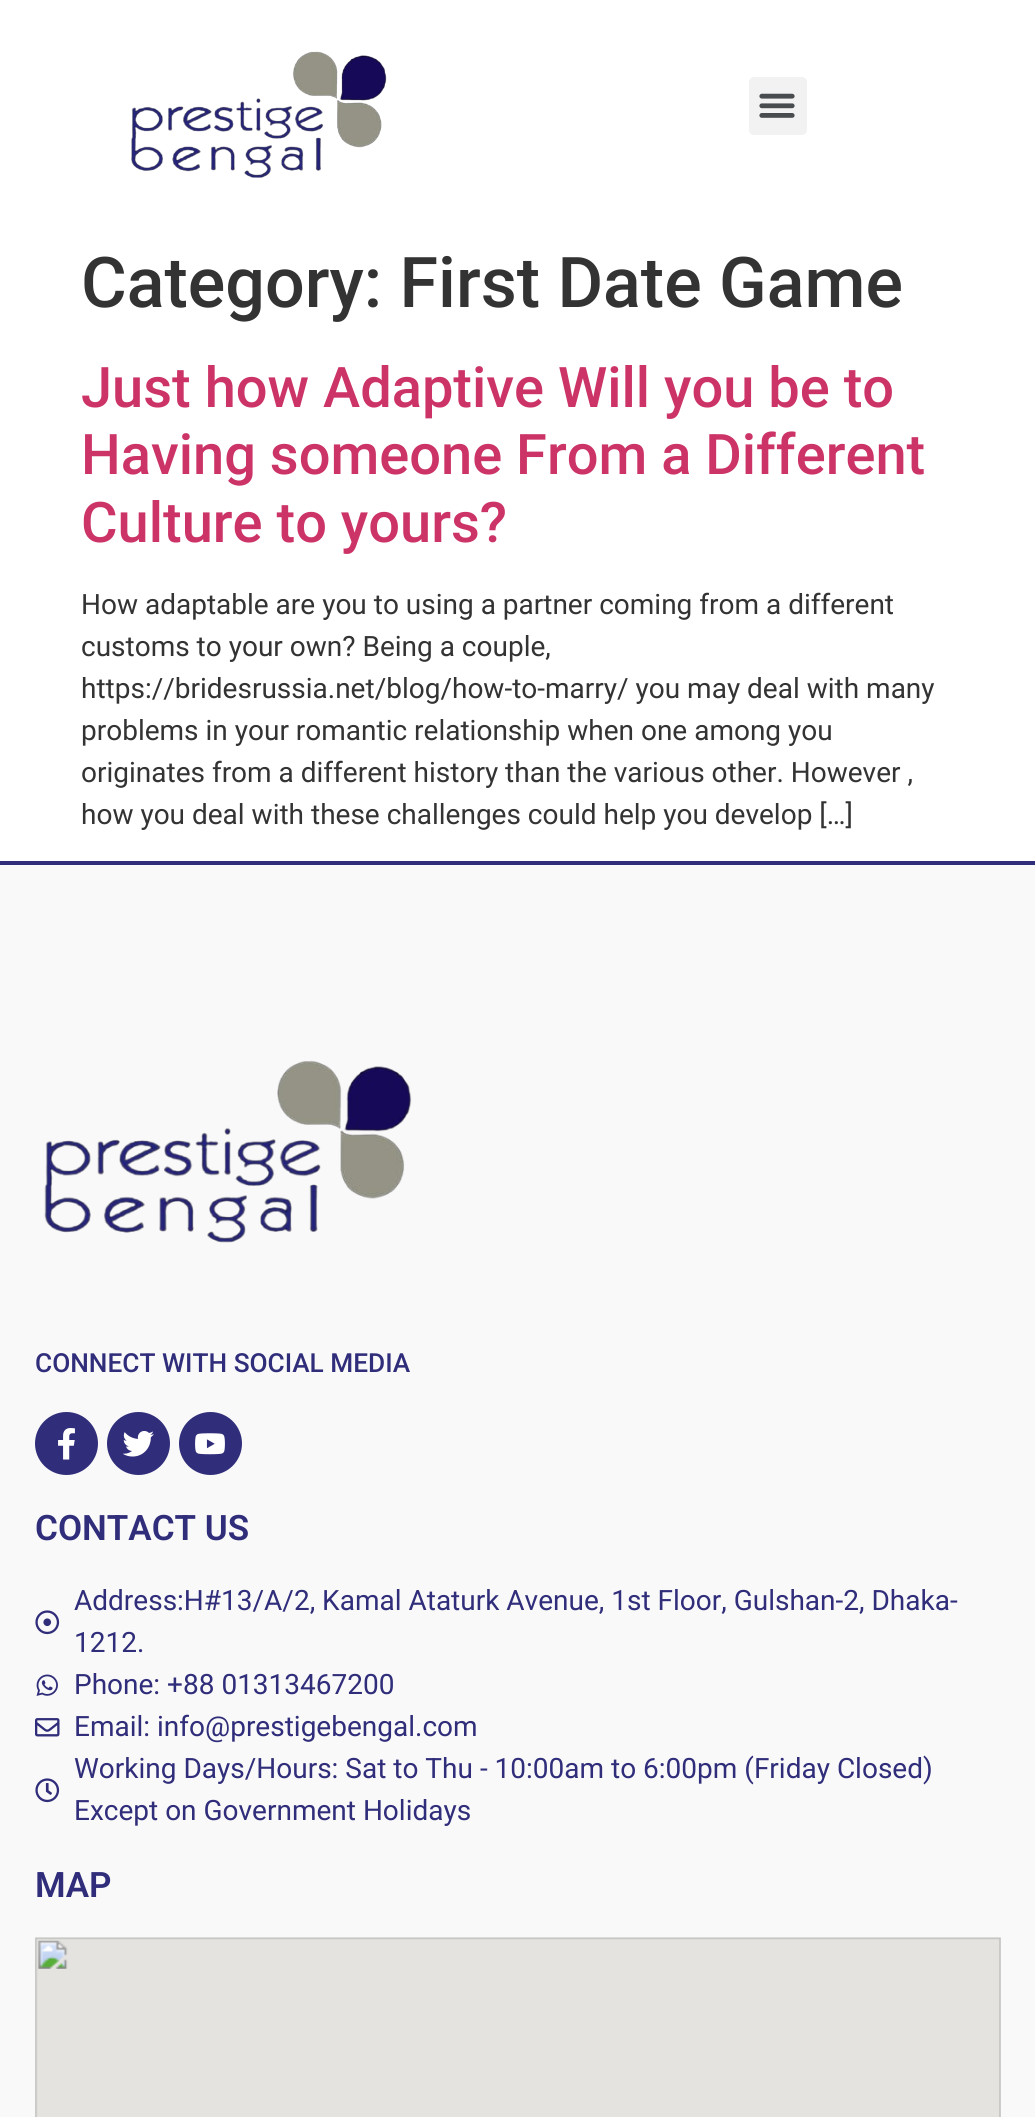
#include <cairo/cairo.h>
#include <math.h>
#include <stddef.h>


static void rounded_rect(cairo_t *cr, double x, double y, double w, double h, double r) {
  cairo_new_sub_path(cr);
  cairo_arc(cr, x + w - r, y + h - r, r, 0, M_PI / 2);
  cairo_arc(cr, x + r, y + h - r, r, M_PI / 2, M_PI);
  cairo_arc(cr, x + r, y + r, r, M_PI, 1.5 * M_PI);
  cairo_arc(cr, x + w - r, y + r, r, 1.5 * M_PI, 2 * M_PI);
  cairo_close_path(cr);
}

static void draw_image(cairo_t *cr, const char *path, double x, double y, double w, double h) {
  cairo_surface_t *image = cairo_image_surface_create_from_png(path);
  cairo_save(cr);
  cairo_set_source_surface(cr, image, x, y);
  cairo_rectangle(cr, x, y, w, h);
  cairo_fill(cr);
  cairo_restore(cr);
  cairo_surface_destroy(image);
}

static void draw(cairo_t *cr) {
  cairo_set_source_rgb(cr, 1, 1, 1);
  cairo_paint(cr);
  draw_image(cr, "images/1.png", 131, 51, 256, 127);
  cairo_set_source_rgb(cr, 242 / 255.0, 242 / 255.0, 242 / 255.0);
  rounded_rect(cr, 749, 77, 58, 58, 5);
  cairo_fill(cr);
  draw_image(cr, "images/2.png", 759, 93, 36, 25);
  cairo_set_source_rgb(cr, 249 / 255.0, 249 / 255.0, 249 / 255.0);
  cairo_rectangle(cr, 0, 865, 1035, 1252);
  cairo_fill(cr);
  cairo_set_source_rgb(cr, 48 / 255.0, 45 / 255.0, 122 / 255.0);
  cairo_rectangle(cr, 0, 861, 1035, 4);
  cairo_fill(cr);
  draw_image(cr, "images/3.png", 44, 1060, 368, 183);
  cairo_arc(cr, 66.5, 1443.5, 31.5, 0, 2 * M_PI);
  cairo_fill(cr);
  draw_image(cr, "images/4.png", 58, 1428, 17, 32);
  cairo_arc(cr, 138.5, 1443.5, 31.5, 0, 2 * M_PI);
  cairo_fill(cr);
  draw_image(cr, "images/5.png", 123, 1431, 31, 26);
  cairo_arc(cr, 210.5, 1443.5, 31.5, 0, 2 * M_PI);
  cairo_fill(cr);
  draw_image(cr, "images/6.png", 195, 1433, 30, 22);
  draw_image(cr, "images/7.png", 35, 1610, 25, 25);
  draw_image(cr, "images/8.png", 36, 1674, 22, 22);
  draw_image(cr, "images/9.png", 35, 1718, 25, 19);
  draw_image(cr, "images/10.png", 35, 1778, 25, 25);
  draw_image(cr, "images/11.png", 35, 1937, 966, 180);
  cairo_select_font_face(cr, "Roboto Medium", CAIRO_FONT_SLANT_NORMAL, CAIRO_FONT_WEIGHT_NORMAL);
  cairo_set_font_size(cr, 70);
  cairo_set_source_rgb(cr, 51 / 255.0, 51 / 255.0, 51 / 255.0);
  cairo_move_to(cr, 81, 307);
  cairo_show_text(cr, "Category: First Date Game");
  cairo_set_font_size(cr, 56);
  cairo_set_source_rgb(cr, 204 / 255.0, 51 / 255.0, 102 / 255.0);
  cairo_move_to(cr, 81, 407);
  cairo_show_text(cr, "Just how Adaptive Will you be to");
  cairo_move_to(cr, 81, 474);
  cairo_show_text(cr, "Having someone From a Different");
  cairo_move_to(cr, 81, 542);
  cairo_show_text(cr, "Culture to yours?");
  cairo_select_font_face(cr, "Roboto", CAIRO_FONT_SLANT_NORMAL, CAIRO_FONT_WEIGHT_NORMAL);
  cairo_set_font_size(cr, 28);
  cairo_set_source_rgb(cr, 51 / 255.0, 51 / 255.0, 51 / 255.0);
  cairo_move_to(cr, 81, 614);
  cairo_show_text(cr, "How adaptable are you to using a partner coming from a different");
  cairo_move_to(cr, 81, 656);
  cairo_show_text(cr, "customs to your own? Being a couple,");
  cairo_move_to(cr, 81, 698);
  cairo_show_text(cr, "https://bridesrussia.net/blog/how-to-marry/ you may deal with many");
  cairo_move_to(cr, 81, 740);
  cairo_show_text(cr, "problems in your romantic relationship when one among you");
  cairo_move_to(cr, 81, 782);
  cairo_show_text(cr, "originates from a different history than the various other. However ,");
  cairo_move_to(cr, 81, 824);
  cairo_show_text(cr, "how you deal with these challenges could help you develop […]");
  cairo_select_font_face(cr, "Roboto Medium", CAIRO_FONT_SLANT_NORMAL, CAIRO_FONT_WEIGHT_NORMAL);
  cairo_set_font_size(cr, 26.25);
  cairo_set_source_rgb(cr, 48 / 255.0, 45 / 255.0, 122 / 255.0);
  cairo_move_to(cr, 35, 1372);
  cairo_show_text(cr, "CONNECT WITH SOCIAL MEDIA");
  cairo_select_font_face(cr, "Roboto SemiBold", CAIRO_FONT_SLANT_NORMAL, CAIRO_FONT_WEIGHT_NORMAL);
  cairo_set_font_size(cr, 35);
  cairo_move_to(cr, 35, 1540);
  cairo_show_text(cr, "CONTACT US");
  cairo_select_font_face(cr, "Roboto", CAIRO_FONT_SLANT_NORMAL, CAIRO_FONT_WEIGHT_NORMAL);
  cairo_set_font_size(cr, 28);
  cairo_move_to(cr, 74, 1610);
  cairo_show_text(cr, "Address:H#13/A/2, Kamal Ataturk Avenue, 1st Floor, Gulshan-2, Dhaka-");
  cairo_move_to(cr, 74, 1652);
  cairo_show_text(cr, "1212.");
  cairo_move_to(cr, 74, 1694);
  cairo_show_text(cr, "Phone: +88 01313467200");
  cairo_move_to(cr, 74, 1736);
  cairo_show_text(cr, "Email: info@prestigebengal.com");
  cairo_move_to(cr, 74, 1778);
  cairo_show_text(cr, "Working Days/Hours: Sat to Thu - 10:00am to 6:00pm (Friday Closed)");
  cairo_move_to(cr, 74, 1820);
  cairo_show_text(cr, "Except on Government Holidays");
  cairo_select_font_face(cr, "Roboto SemiBold", CAIRO_FONT_SLANT_NORMAL, CAIRO_FONT_WEIGHT_NORMAL);
  cairo_set_font_size(cr, 35);
  cairo_move_to(cr, 35, 1897);
  cairo_show_text(cr, "MAP");
}

int main(void) {
  cairo_surface_t *surface = cairo_image_surface_create(CAIRO_FORMAT_RGB24, 1035, 2117);
  cairo_t *cr = cairo_create(surface);
  cairo_font_options_t *options = cairo_font_options_create();
  cairo_font_options_set_hint_metrics(options, CAIRO_HINT_METRICS_OFF);
  cairo_font_options_set_hint_style(options, CAIRO_HINT_STYLE_NONE);
  cairo_set_font_options(cr, options);
  cairo_set_miter_limit(cr, 4);
  draw(cr);
  cairo_surface_write_to_png(surface, "out.png");
  cairo_font_options_destroy(options);
  cairo_destroy(cr);
  cairo_surface_destroy(surface);
  return 0;
}
